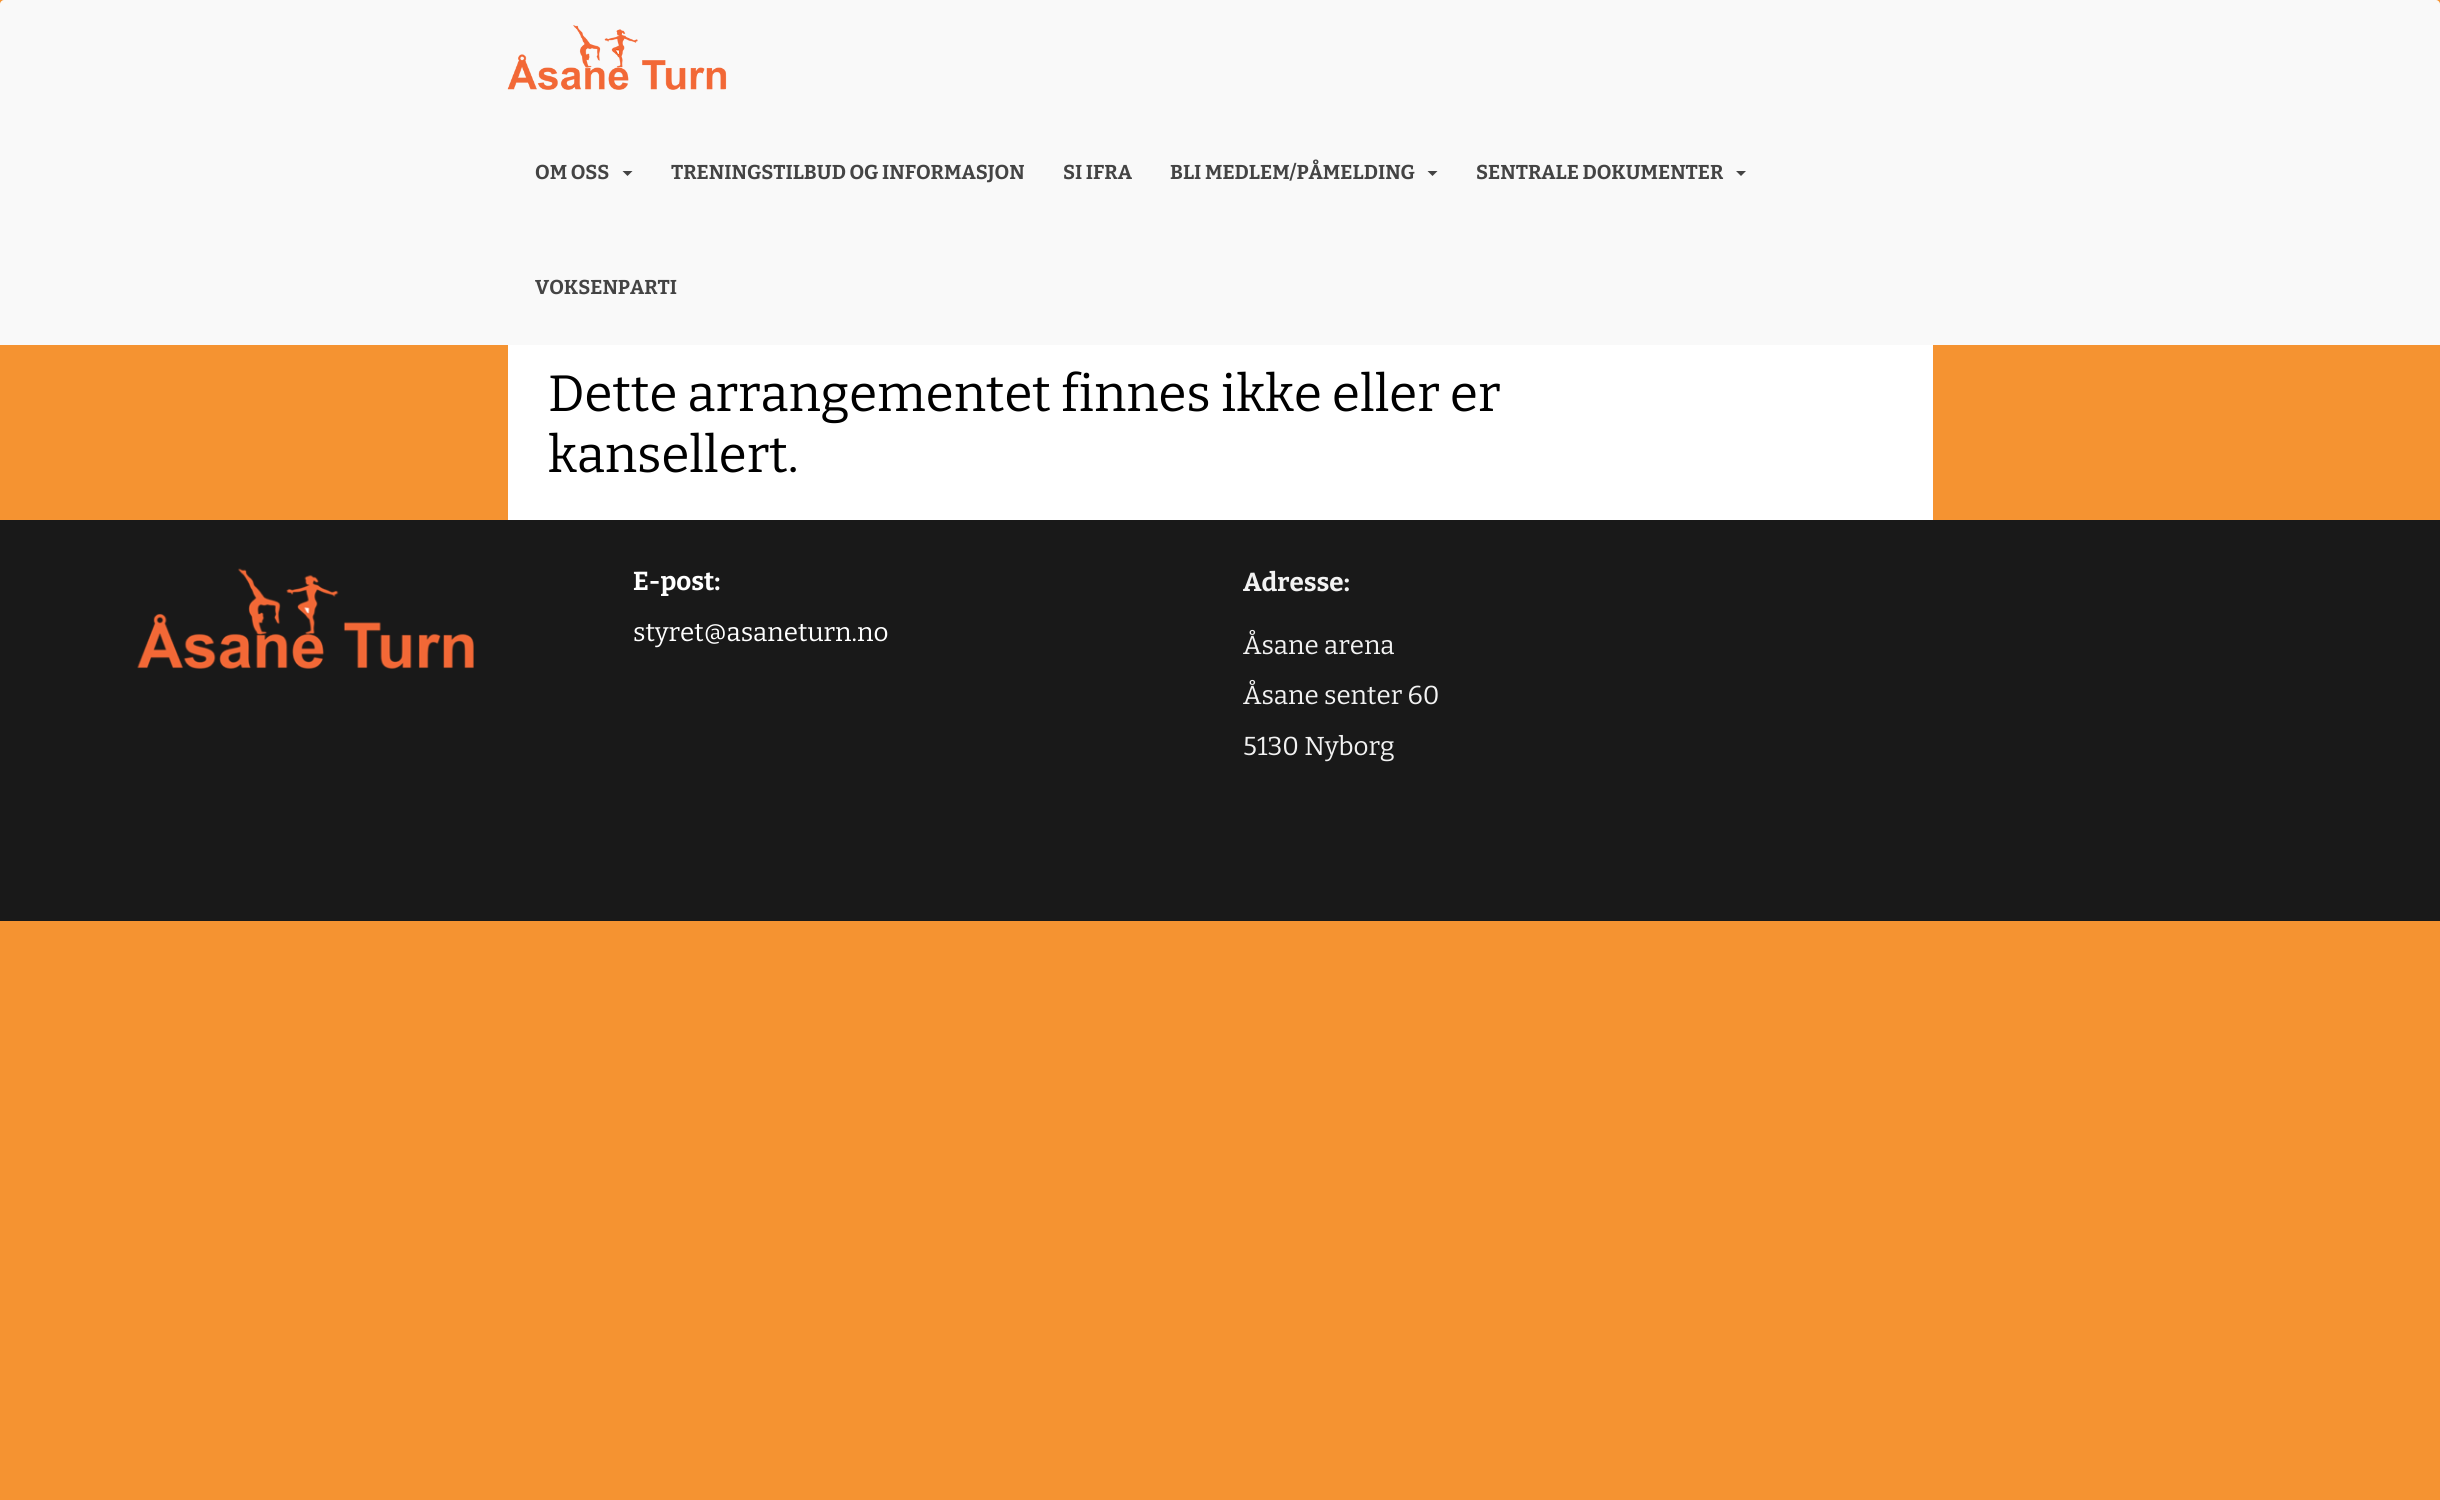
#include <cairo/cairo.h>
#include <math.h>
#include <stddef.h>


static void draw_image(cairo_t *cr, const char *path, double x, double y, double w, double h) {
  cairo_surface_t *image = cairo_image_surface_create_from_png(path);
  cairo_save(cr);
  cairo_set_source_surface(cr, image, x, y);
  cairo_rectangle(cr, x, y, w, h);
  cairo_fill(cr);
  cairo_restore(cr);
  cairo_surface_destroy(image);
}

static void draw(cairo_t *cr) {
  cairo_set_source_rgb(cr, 245 / 255.0, 147 / 255.0, 49 / 255.0);
  cairo_paint(cr);
  cairo_set_source_rgb(cr, 249 / 255.0, 249 / 255.0, 249 / 255.0);
  cairo_new_path(cr);
  cairo_move_to(cr, 4, 0);
  cairo_line_to(cr, 2436, 0);
  cairo_curve_to(cr, 2438, 0, 2440, 2, 2440, 4);
  cairo_line_to(cr, 2440, 345);
  cairo_line_to(cr, 0, 345);
  cairo_line_to(cr, 0, 4);
  cairo_curve_to(cr, 0, 2, 2, 0, 4, 0);
  cairo_close_path(cr);
  cairo_fill(cr);
  draw_image(cr, "images/1.png", 507, 25, 220, 65);
  cairo_set_source_rgb(cr, 68 / 255.0, 68 / 255.0, 68 / 255.0);
  cairo_new_path(cr);
  cairo_move_to(cr, 622.5, 171);
  cairo_line_to(cr, 632.5, 171);
  cairo_line_to(cr, 627.5, 176);
  cairo_close_path(cr);
  cairo_fill(cr);
  cairo_new_path(cr);
  cairo_move_to(cr, 1427.5, 171);
  cairo_line_to(cr, 1437.5, 171);
  cairo_line_to(cr, 1432.5, 176);
  cairo_close_path(cr);
  cairo_fill(cr);
  cairo_new_path(cr);
  cairo_move_to(cr, 1736, 171);
  cairo_line_to(cr, 1746, 171);
  cairo_line_to(cr, 1741, 176);
  cairo_close_path(cr);
  cairo_fill(cr);
  cairo_set_source_rgb(cr, 1, 1, 1);
  cairo_rectangle(cr, 508, 345, 1425, 175);
  cairo_fill(cr);
  cairo_set_source_rgb(cr, 25 / 255.0, 25 / 255.0, 25 / 255.0);
  cairo_rectangle(cr, 0, 520, 2440, 401);
  cairo_fill(cr);
  draw_image(cr, "images/2.png", 137, 568, 337, 101);
  cairo_select_font_face(cr, "Bitter", CAIRO_FONT_SLANT_NORMAL, CAIRO_FONT_WEIGHT_BOLD);
  cairo_set_font_size(cr, 20);
  cairo_set_source_rgb(cr, 68 / 255.0, 68 / 255.0, 68 / 255.0);
  cairo_move_to(cr, 535, 179);
  cairo_show_text(cr, "OM OSS");
  cairo_move_to(cr, 671, 179);
  cairo_show_text(cr, "TRENINGSTILBUD OG INFORMASJON");
  cairo_move_to(cr, 1063, 179);
  cairo_show_text(cr, "SI IFRA");
  cairo_move_to(cr, 1170, 179);
  cairo_show_text(cr, "BLI MEDLEM/PÅMELDING");
  cairo_move_to(cr, 1476, 179);
  cairo_show_text(cr, "SENTRALE DOKUMENTER");
  cairo_move_to(cr, 535, 294);
  cairo_show_text(cr, "VOKSENPARTI");
  cairo_select_font_face(cr, "Bitter", CAIRO_FONT_SLANT_NORMAL, CAIRO_FONT_WEIGHT_NORMAL);
  cairo_set_font_size(cr, 51);
  cairo_set_source_rgb(cr, 0, 0, 0);
  cairo_move_to(cr, 548, 411);
  cairo_show_text(cr, "Dette arrangementet finnes ikke eller er");
  cairo_move_to(cr, 548, 472);
  cairo_show_text(cr, "kansellert.");
  cairo_select_font_face(cr, "Bitter", CAIRO_FONT_SLANT_NORMAL, CAIRO_FONT_WEIGHT_BOLD);
  cairo_set_font_size(cr, 26);
  cairo_set_source_rgb(cr, 1, 1, 1);
  cairo_move_to(cr, 633, 590);
  cairo_show_text(cr, "E-post:");
  cairo_select_font_face(cr, "Bitter", CAIRO_FONT_SLANT_NORMAL, CAIRO_FONT_WEIGHT_NORMAL);
  cairo_move_to(cr, 633, 641);
  cairo_show_text(cr, "styret@asaneturn.no");
  cairo_select_font_face(cr, "Bitter", CAIRO_FONT_SLANT_NORMAL, CAIRO_FONT_WEIGHT_BOLD);
  cairo_set_source_rgb(cr, 242 / 255.0, 242 / 255.0, 242 / 255.0);
  cairo_move_to(cr, 1243, 591);
  cairo_show_text(cr, "Adresse:");
  cairo_select_font_face(cr, "Bitter", CAIRO_FONT_SLANT_NORMAL, CAIRO_FONT_WEIGHT_NORMAL);
  cairo_move_to(cr, 1243, 654);
  cairo_show_text(cr, "Åsane arena");
  cairo_move_to(cr, 1243, 704);
  cairo_show_text(cr, "Åsane senter 60");
  cairo_move_to(cr, 1243, 755);
  cairo_show_text(cr, "5130 Nyborg");
}

int main(void) {
  cairo_surface_t *surface = cairo_image_surface_create(CAIRO_FORMAT_RGB24, 2440, 1500);
  cairo_t *cr = cairo_create(surface);
  cairo_font_options_t *options = cairo_font_options_create();
  cairo_font_options_set_hint_metrics(options, CAIRO_HINT_METRICS_OFF);
  cairo_font_options_set_hint_style(options, CAIRO_HINT_STYLE_NONE);
  cairo_set_font_options(cr, options);
  cairo_set_miter_limit(cr, 4);
  draw(cr);
  cairo_surface_write_to_png(surface, "out.png");
  cairo_font_options_destroy(options);
  cairo_destroy(cr);
  cairo_surface_destroy(surface);
  return 0;
}
